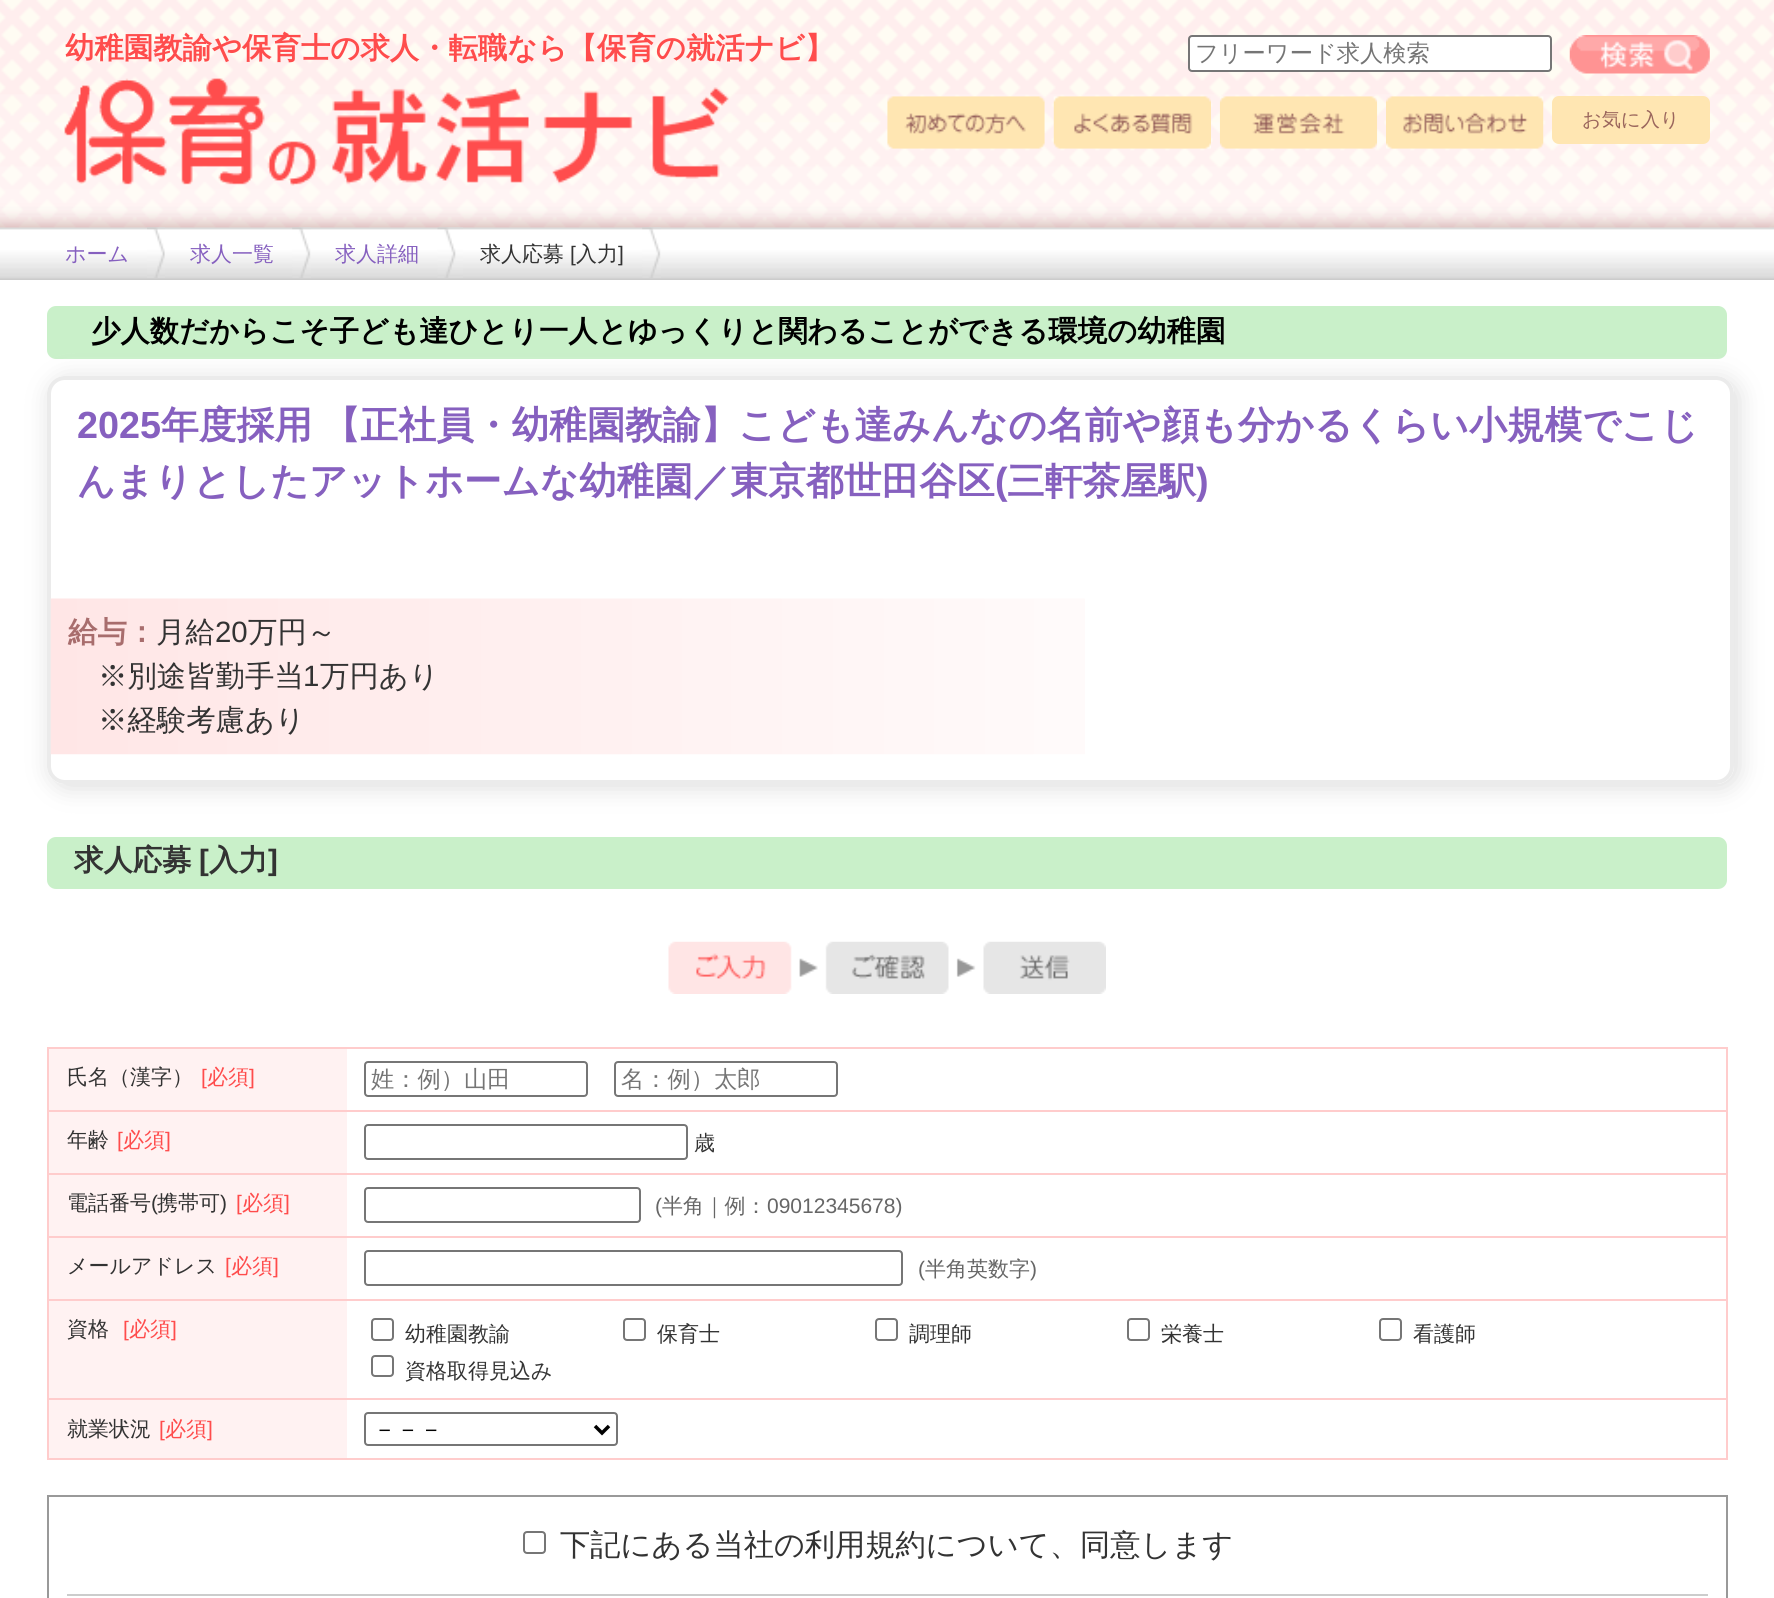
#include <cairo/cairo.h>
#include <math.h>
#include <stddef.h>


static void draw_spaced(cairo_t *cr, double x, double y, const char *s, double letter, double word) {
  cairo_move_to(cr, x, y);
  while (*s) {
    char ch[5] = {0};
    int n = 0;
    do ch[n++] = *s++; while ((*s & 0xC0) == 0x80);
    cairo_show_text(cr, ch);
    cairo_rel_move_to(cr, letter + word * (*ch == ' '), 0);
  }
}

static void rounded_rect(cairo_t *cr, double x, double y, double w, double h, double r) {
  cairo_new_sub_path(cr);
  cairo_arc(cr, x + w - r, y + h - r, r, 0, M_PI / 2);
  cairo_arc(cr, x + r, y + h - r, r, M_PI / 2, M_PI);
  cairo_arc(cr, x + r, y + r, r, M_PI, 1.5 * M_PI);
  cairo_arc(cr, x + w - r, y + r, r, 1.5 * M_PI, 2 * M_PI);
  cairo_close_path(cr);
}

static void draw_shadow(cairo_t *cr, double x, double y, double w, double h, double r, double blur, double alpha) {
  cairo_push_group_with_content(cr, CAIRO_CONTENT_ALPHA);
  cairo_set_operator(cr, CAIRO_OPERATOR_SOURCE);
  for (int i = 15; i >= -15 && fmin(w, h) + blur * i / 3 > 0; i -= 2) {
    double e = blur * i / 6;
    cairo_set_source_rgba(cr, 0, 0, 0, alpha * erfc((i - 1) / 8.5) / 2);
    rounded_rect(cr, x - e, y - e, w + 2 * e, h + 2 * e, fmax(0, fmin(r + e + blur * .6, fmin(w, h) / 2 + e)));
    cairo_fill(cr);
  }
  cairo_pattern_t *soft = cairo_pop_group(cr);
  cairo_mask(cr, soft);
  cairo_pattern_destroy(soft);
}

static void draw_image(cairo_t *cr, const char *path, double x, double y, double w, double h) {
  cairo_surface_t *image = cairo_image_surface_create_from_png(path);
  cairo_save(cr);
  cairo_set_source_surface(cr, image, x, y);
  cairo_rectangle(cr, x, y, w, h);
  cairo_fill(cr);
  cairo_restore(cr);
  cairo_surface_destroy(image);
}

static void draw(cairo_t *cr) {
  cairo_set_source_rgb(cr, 1, 1, 1);
  cairo_paint(cr);
  draw_image(cr, "images/1.png", 0, 0, 1774, 280);
  cairo_set_source_rgb(cr, 1, 1, 1);
  rounded_rect(cr, 1189, 36, 362, 35, 3);
  cairo_fill_preserve(cr);
  cairo_set_source_rgb(cr, 118 / 255.0, 118 / 255.0, 118 / 255.0);
  cairo_stroke(cr);
  draw_image(cr, "images/2.png", 1569, 35, 141, 39);
  draw_image(cr, "images/3.png", 64, 78, 665, 108);
  draw_image(cr, "images/4.png", 887, 96, 158, 53);
  draw_image(cr, "images/5.png", 1053, 96, 158, 53);
  draw_image(cr, "images/6.png", 1219, 96, 159, 53);
  draw_image(cr, "images/7.png", 1386, 96, 158, 53);
  cairo_set_source_rgb(cr, 1, 230 / 255.0, 178 / 255.0);
  rounded_rect(cr, 1552, 96, 158, 48, 7);
  cairo_fill(cr);
  draw_image(cr, "images/8.png", 147, 227, 18, 51);
  draw_image(cr, "images/9.png", 292, 227, 19, 51);
  draw_image(cr, "images/10.png", 437, 227, 26, 51);
  draw_image(cr, "images/9.png", 642, 227, 19, 51);
  cairo_set_source_rgb(cr, 201 / 255.0, 240 / 255.0, 201 / 255.0);
  rounded_rect(cr, 47, 306, 1680, 53, 9);
  cairo_fill(cr);
  cairo_save(cr);
  cairo_set_fill_rule(cr, CAIRO_FILL_RULE_EVEN_ODD);
  cairo_new_path(cr);
  cairo_move_to(cr, 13, 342);
  cairo_line_to(cr, 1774, 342);
  cairo_line_to(cr, 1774, 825);
  cairo_line_to(cr, 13, 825);
  cairo_close_path(cr);
  cairo_move_to(cr, 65, 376);
  cairo_line_to(cr, 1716, 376);
  cairo_curve_to(cr, 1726, 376, 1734, 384, 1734, 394);
  cairo_line_to(cr, 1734, 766);
  cairo_curve_to(cr, 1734, 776, 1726, 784, 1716, 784);
  cairo_line_to(cr, 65, 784);
  cairo_curve_to(cr, 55, 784, 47, 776, 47, 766);
  cairo_line_to(cr, 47, 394);
  cairo_curve_to(cr, 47, 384, 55, 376, 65, 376);
  cairo_close_path(cr);
  cairo_clip(cr);
  cairo_set_source_rgb(cr, 224 / 255.0, 224 / 255.0, 224 / 255.0);
  draw_shadow(cr, 49, 378, 1691, 411, 19, 11.5, 1);
  cairo_restore(cr);
  rounded_rect(cr, 49, 378, 1683, 404, 16);
  cairo_set_source_rgb(cr, 235 / 255.0, 235 / 255.0, 235 / 255.0);
  cairo_set_line_width(cr, 4);
  cairo_stroke(cr);
  draw_image(cr, "images/11.png", 50, 598, 1035, 157);
  cairo_set_source_rgb(cr, 201 / 255.0, 240 / 255.0, 201 / 255.0);
  rounded_rect(cr, 47, 837, 1680, 52, 9);
  cairo_fill(cr);
  draw_image(cr, "images/12.png", 668, 941, 438, 53);
  cairo_set_source_rgb(cr, 1, 204 / 255.0, 204 / 255.0);
  cairo_rectangle(cr, 47, 1047, 1680, 2);
  cairo_fill(cr);
  cairo_rectangle(cr, 1726, 1047, 2, 413);
  cairo_fill(cr);
  cairo_rectangle(cr, 47, 1458, 1680, 2);
  cairo_fill(cr);
  cairo_rectangle(cr, 47, 1047, 2, 413);
  cairo_fill(cr);
  cairo_set_source_rgb(cr, 1, 242 / 255.0, 242 / 255.0);
  cairo_rectangle(cr, 49, 1049, 298, 61);
  cairo_fill(cr);
  cairo_set_source_rgb(cr, 1, 204 / 255.0, 204 / 255.0);
  cairo_rectangle(cr, 47, 1110, 1680, 2);
  cairo_fill(cr);
  rounded_rect(cr, 365, 1062, 222, 34, 3);
  cairo_set_source_rgb(cr, 118 / 255.0, 118 / 255.0, 118 / 255.0);
  cairo_set_line_width(cr, 2);
  cairo_stroke(cr);
  rounded_rect(cr, 615, 1062, 222, 34, 3);
  cairo_stroke(cr);
  cairo_set_source_rgb(cr, 1, 242 / 255.0, 242 / 255.0);
  cairo_rectangle(cr, 49, 1112, 298, 61);
  cairo_fill(cr);
  cairo_set_source_rgb(cr, 1, 204 / 255.0, 204 / 255.0);
  cairo_rectangle(cr, 47, 1173, 1680, 2);
  cairo_fill(cr);
  rounded_rect(cr, 365, 1125, 322, 34, 3);
  cairo_set_source_rgb(cr, 118 / 255.0, 118 / 255.0, 118 / 255.0);
  cairo_stroke(cr);
  cairo_set_source_rgb(cr, 1, 242 / 255.0, 242 / 255.0);
  cairo_rectangle(cr, 49, 1175, 298, 61);
  cairo_fill(cr);
  cairo_set_source_rgb(cr, 1, 204 / 255.0, 204 / 255.0);
  cairo_rectangle(cr, 47, 1236, 1680, 2);
  cairo_fill(cr);
  rounded_rect(cr, 365, 1188, 275, 34, 3);
  cairo_set_source_rgb(cr, 118 / 255.0, 118 / 255.0, 118 / 255.0);
  cairo_stroke(cr);
  cairo_set_source_rgb(cr, 1, 242 / 255.0, 242 / 255.0);
  cairo_rectangle(cr, 49, 1238, 298, 61);
  cairo_fill(cr);
  cairo_set_source_rgb(cr, 1, 204 / 255.0, 204 / 255.0);
  cairo_rectangle(cr, 47, 1299, 1680, 2);
  cairo_fill(cr);
  rounded_rect(cr, 365, 1251, 537, 34, 3);
  cairo_set_source_rgb(cr, 118 / 255.0, 118 / 255.0, 118 / 255.0);
  cairo_stroke(cr);
  cairo_set_source_rgb(cr, 1, 242 / 255.0, 242 / 255.0);
  cairo_rectangle(cr, 49, 1301, 298, 97);
  cairo_fill(cr);
  cairo_set_source_rgb(cr, 1, 204 / 255.0, 204 / 255.0);
  cairo_rectangle(cr, 47, 1398, 1680, 2);
  cairo_fill(cr);
  rounded_rect(cr, 372, 1319, 21, 21, 3);
  cairo_set_source_rgb(cr, 118 / 255.0, 118 / 255.0, 118 / 255.0);
  cairo_stroke(cr);
  rounded_rect(cr, 624, 1319, 21, 21, 3);
  cairo_stroke(cr);
  rounded_rect(cr, 876, 1319, 21, 21, 3);
  cairo_stroke(cr);
  rounded_rect(cr, 1128, 1319, 21, 21, 3);
  cairo_stroke(cr);
  rounded_rect(cr, 1380, 1319, 21, 21, 3);
  cairo_stroke(cr);
  rounded_rect(cr, 372, 1356, 21, 20, 3);
  cairo_stroke(cr);
  cairo_set_source_rgb(cr, 1, 242 / 255.0, 242 / 255.0);
  cairo_rectangle(cr, 49, 1400, 298, 58);
  cairo_fill(cr);
  rounded_rect(cr, 365, 1413, 252, 32, 3);
  cairo_set_source_rgb(cr, 118 / 255.0, 118 / 255.0, 118 / 255.0);
  cairo_stroke(cr);
  cairo_new_path(cr);
  cairo_move_to(cr, 595, 1426);
  cairo_line_to(cr, 602, 1433);
  cairo_line_to(cr, 609, 1426);
  cairo_set_source_rgb(cr, 0, 0, 0);
  cairo_set_line_width(cr, 3.5);
  cairo_stroke(cr);
  cairo_set_source_rgb(cr, 153 / 255.0, 153 / 255.0, 153 / 255.0);
  cairo_rectangle(cr, 47, 1495, 1680, 2);
  cairo_fill(cr);
  cairo_rectangle(cr, 1726, 1495, 2, 103);
  cairo_fill(cr);
  cairo_rectangle(cr, 47, 1495, 2, 103);
  cairo_fill(cr);
  rounded_rect(cr, 524, 1532, 21, 21, 3);
  cairo_set_source_rgb(cr, 118 / 255.0, 118 / 255.0, 118 / 255.0);
  cairo_set_line_width(cr, 2);
  cairo_stroke(cr);
  cairo_set_source_rgb(cr, 204 / 255.0, 204 / 255.0, 204 / 255.0);
  cairo_rectangle(cr, 67, 1594, 1641, 2);
  cairo_fill(cr);
  cairo_select_font_face(cr, "WenQuanYi Zen Hei", CAIRO_FONT_SLANT_NORMAL, CAIRO_FONT_WEIGHT_BOLD);
  cairo_set_font_size(cr, 29.4);
  cairo_set_source_rgb(cr, 1, 76 / 255.0, 76 / 255.0);
  cairo_move_to(cr, 65, 58);
  cairo_show_text(cr, "幼稚園教諭や保育士の求人・転職なら【保育の就活ナビ】");
  cairo_select_font_face(cr, "WenQuanYi Zen Hei Medium", CAIRO_FONT_SLANT_NORMAL, CAIRO_FONT_WEIGHT_NORMAL);
  cairo_set_font_size(cr, 23.25);
  cairo_set_source_rgb(cr, 117 / 255.0, 117 / 255.0, 117 / 255.0);
  cairo_move_to(cr, 1195, 61);
  cairo_show_text(cr, "フリーワード求人検索");
  cairo_set_font_size(cr, 19.25);
  cairo_set_source_rgb(cr, 154 / 255.0, 101 / 255.0, 92 / 255.0);
  cairo_move_to(cr, 1582, 126);
  cairo_show_text(cr, "お気に入り");
  cairo_set_font_size(cr, 21);
  cairo_set_source_rgb(cr, 134 / 255.0, 96 / 255.0, 191 / 255.0);
  cairo_move_to(cr, 65, 261);
  cairo_show_text(cr, "ホーム");
  cairo_move_to(cr, 190, 261);
  cairo_show_text(cr, "求人一覧");
  cairo_move_to(cr, 335, 261);
  cairo_show_text(cr, "求人詳細");
  cairo_set_source_rgb(cr, 51 / 255.0, 51 / 255.0, 51 / 255.0);
  cairo_move_to(cr, 480, 261);
  cairo_show_text(cr, "求人応募");
  cairo_select_font_face(cr, "Liberation Sans", CAIRO_FONT_SLANT_NORMAL, CAIRO_FONT_WEIGHT_NORMAL);
  cairo_move_to(cr, 570, 261);
  cairo_show_text(cr, "[");
  cairo_select_font_face(cr, "WenQuanYi Zen Hei Medium", CAIRO_FONT_SLANT_NORMAL, CAIRO_FONT_WEIGHT_NORMAL);
  cairo_move_to(cr, 576, 261);
  cairo_show_text(cr, "入力");
  cairo_select_font_face(cr, "Liberation Sans", CAIRO_FONT_SLANT_NORMAL, CAIRO_FONT_WEIGHT_NORMAL);
  cairo_move_to(cr, 618, 261);
  cairo_show_text(cr, "]");
  cairo_select_font_face(cr, "WenQuanYi Zen Hei", CAIRO_FONT_SLANT_NORMAL, CAIRO_FONT_WEIGHT_BOLD);
  cairo_set_font_size(cr, 29.4);
  cairo_set_source_rgb(cr, 0, 0, 0);
  cairo_move_to(cr, 91, 341);
  cairo_show_text(cr, "少人数だからこそ子ども達ひとり一人とゆっくりと関わることができる環境の幼稚園");
  cairo_select_font_face(cr, "Liberation Sans", CAIRO_FONT_SLANT_NORMAL, CAIRO_FONT_WEIGHT_BOLD);
  cairo_set_font_size(cr, 37.8);
  cairo_set_source_rgb(cr, 134 / 255.0, 96 / 255.0, 191 / 255.0);
  cairo_move_to(cr, 77, 438);
  cairo_show_text(cr, "2025");
  cairo_select_font_face(cr, "WenQuanYi Zen Hei", CAIRO_FONT_SLANT_NORMAL, CAIRO_FONT_WEIGHT_BOLD);
  draw_spaced(cr, 161, 438, "年度採用 【正社員・幼稚園教諭】こども達みんなの名前や顔も分かるくらい小規模でこじ", 0, -1);
  cairo_move_to(cr, 77, 494);
  cairo_show_text(cr, "んまりとしたアットホームな幼稚園／東京都世田谷区");
  cairo_select_font_face(cr, "Liberation Sans", CAIRO_FONT_SLANT_NORMAL, CAIRO_FONT_WEIGHT_BOLD);
  cairo_move_to(cr, 995, 494);
  cairo_show_text(cr, "(");
  cairo_select_font_face(cr, "WenQuanYi Zen Hei", CAIRO_FONT_SLANT_NORMAL, CAIRO_FONT_WEIGHT_BOLD);
  cairo_move_to(cr, 1007, 494);
  cairo_show_text(cr, "三軒茶屋駅");
  cairo_select_font_face(cr, "Liberation Sans", CAIRO_FONT_SLANT_NORMAL, CAIRO_FONT_WEIGHT_BOLD);
  cairo_move_to(cr, 1196, 494);
  cairo_show_text(cr, ")");
  cairo_select_font_face(cr, "WenQuanYi Zen Hei", CAIRO_FONT_SLANT_NORMAL, CAIRO_FONT_WEIGHT_BOLD);
  cairo_set_font_size(cr, 29.4);
  cairo_set_source_rgb(cr, 168 / 255.0, 109 / 255.0, 109 / 255.0);
  cairo_move_to(cr, 68, 642);
  cairo_show_text(cr, "給与：");
  cairo_select_font_face(cr, "WenQuanYi Zen Hei Medium", CAIRO_FONT_SLANT_NORMAL, CAIRO_FONT_WEIGHT_NORMAL);
  cairo_set_source_rgb(cr, 51 / 255.0, 51 / 255.0, 51 / 255.0);
  cairo_move_to(cr, 156, 642);
  cairo_show_text(cr, "月給");
  cairo_select_font_face(cr, "Liberation Sans", CAIRO_FONT_SLANT_NORMAL, CAIRO_FONT_WEIGHT_NORMAL);
  cairo_move_to(cr, 215, 642);
  cairo_show_text(cr, "20");
  cairo_select_font_face(cr, "WenQuanYi Zen Hei Medium", CAIRO_FONT_SLANT_NORMAL, CAIRO_FONT_WEIGHT_NORMAL);
  cairo_move_to(cr, 248, 642);
  cairo_show_text(cr, "万円～");
  cairo_move_to(cr, 98, 686);
  cairo_show_text(cr, "※別途皆勤手当");
  cairo_select_font_face(cr, "Liberation Sans", CAIRO_FONT_SLANT_NORMAL, CAIRO_FONT_WEIGHT_NORMAL);
  cairo_move_to(cr, 303, 686);
  cairo_show_text(cr, "1");
  cairo_select_font_face(cr, "WenQuanYi Zen Hei Medium", CAIRO_FONT_SLANT_NORMAL, CAIRO_FONT_WEIGHT_NORMAL);
  cairo_move_to(cr, 320, 686);
  cairo_show_text(cr, "万円あり");
  cairo_move_to(cr, 98, 730);
  cairo_show_text(cr, "※経験考慮あり");
  cairo_select_font_face(cr, "WenQuanYi Zen Hei", CAIRO_FONT_SLANT_NORMAL, CAIRO_FONT_WEIGHT_BOLD);
  cairo_move_to(cr, 74, 870);
  cairo_show_text(cr, "求人応募");
  cairo_select_font_face(cr, "Liberation Sans", CAIRO_FONT_SLANT_NORMAL, CAIRO_FONT_WEIGHT_BOLD);
  cairo_move_to(cr, 199, 870);
  cairo_show_text(cr, "[");
  cairo_select_font_face(cr, "WenQuanYi Zen Hei", CAIRO_FONT_SLANT_NORMAL, CAIRO_FONT_WEIGHT_BOLD);
  cairo_move_to(cr, 209, 870);
  cairo_show_text(cr, "入力");
  cairo_select_font_face(cr, "Liberation Sans", CAIRO_FONT_SLANT_NORMAL, CAIRO_FONT_WEIGHT_BOLD);
  cairo_move_to(cr, 268, 870);
  cairo_show_text(cr, "]");
  cairo_select_font_face(cr, "WenQuanYi Zen Hei Medium", CAIRO_FONT_SLANT_NORMAL, CAIRO_FONT_WEIGHT_NORMAL);
  cairo_set_font_size(cr, 21);
  cairo_move_to(cr, 67, 1084);
  cairo_show_text(cr, "氏名（漢字）");
  cairo_select_font_face(cr, "Liberation Sans", CAIRO_FONT_SLANT_NORMAL, CAIRO_FONT_WEIGHT_NORMAL);
  cairo_set_source_rgb(cr, 1, 76 / 255.0, 76 / 255.0);
  cairo_move_to(cr, 201, 1084);
  cairo_show_text(cr, "[");
  cairo_select_font_face(cr, "WenQuanYi Zen Hei Medium", CAIRO_FONT_SLANT_NORMAL, CAIRO_FONT_WEIGHT_NORMAL);
  cairo_move_to(cr, 207, 1084);
  cairo_show_text(cr, "必須");
  cairo_select_font_face(cr, "Liberation Sans", CAIRO_FONT_SLANT_NORMAL, CAIRO_FONT_WEIGHT_NORMAL);
  cairo_move_to(cr, 249, 1084);
  cairo_show_text(cr, "]");
  cairo_select_font_face(cr, "WenQuanYi Zen Hei Medium", CAIRO_FONT_SLANT_NORMAL, CAIRO_FONT_WEIGHT_NORMAL);
  cairo_set_font_size(cr, 23.25);
  cairo_set_source_rgb(cr, 117 / 255.0, 117 / 255.0, 117 / 255.0);
  cairo_move_to(cr, 371, 1087);
  cairo_show_text(cr, "姓：例）山田");
  cairo_move_to(cr, 621, 1087);
  cairo_show_text(cr, "名：例）太郎");
  cairo_set_font_size(cr, 21);
  cairo_set_source_rgb(cr, 51 / 255.0, 51 / 255.0, 51 / 255.0);
  cairo_move_to(cr, 67, 1147);
  cairo_show_text(cr, "年齢");
  cairo_select_font_face(cr, "Liberation Sans", CAIRO_FONT_SLANT_NORMAL, CAIRO_FONT_WEIGHT_NORMAL);
  cairo_set_source_rgb(cr, 1, 76 / 255.0, 76 / 255.0);
  cairo_move_to(cr, 117, 1147);
  cairo_show_text(cr, "[");
  cairo_select_font_face(cr, "WenQuanYi Zen Hei Medium", CAIRO_FONT_SLANT_NORMAL, CAIRO_FONT_WEIGHT_NORMAL);
  cairo_move_to(cr, 123, 1147);
  cairo_show_text(cr, "必須");
  cairo_select_font_face(cr, "Liberation Sans", CAIRO_FONT_SLANT_NORMAL, CAIRO_FONT_WEIGHT_NORMAL);
  cairo_move_to(cr, 165, 1147);
  cairo_show_text(cr, "]");
  cairo_select_font_face(cr, "WenQuanYi Zen Hei Medium", CAIRO_FONT_SLANT_NORMAL, CAIRO_FONT_WEIGHT_NORMAL);
  cairo_set_source_rgb(cr, 51 / 255.0, 51 / 255.0, 51 / 255.0);
  cairo_move_to(cr, 694, 1150);
  cairo_show_text(cr, "歳");
  cairo_move_to(cr, 67, 1210);
  cairo_show_text(cr, "電話番号");
  cairo_select_font_face(cr, "Liberation Sans", CAIRO_FONT_SLANT_NORMAL, CAIRO_FONT_WEIGHT_NORMAL);
  cairo_move_to(cr, 151, 1210);
  cairo_show_text(cr, "(");
  cairo_select_font_face(cr, "WenQuanYi Zen Hei Medium", CAIRO_FONT_SLANT_NORMAL, CAIRO_FONT_WEIGHT_NORMAL);
  cairo_move_to(cr, 157, 1210);
  cairo_show_text(cr, "携帯可");
  cairo_select_font_face(cr, "Liberation Sans", CAIRO_FONT_SLANT_NORMAL, CAIRO_FONT_WEIGHT_NORMAL);
  cairo_move_to(cr, 220, 1210);
  cairo_show_text(cr, ")");
  cairo_set_source_rgb(cr, 1, 76 / 255.0, 76 / 255.0);
  cairo_move_to(cr, 236, 1210);
  cairo_show_text(cr, "[");
  cairo_select_font_face(cr, "WenQuanYi Zen Hei Medium", CAIRO_FONT_SLANT_NORMAL, CAIRO_FONT_WEIGHT_NORMAL);
  cairo_move_to(cr, 242, 1210);
  cairo_show_text(cr, "必須");
  cairo_select_font_face(cr, "Liberation Sans", CAIRO_FONT_SLANT_NORMAL, CAIRO_FONT_WEIGHT_NORMAL);
  cairo_move_to(cr, 284, 1210);
  cairo_show_text(cr, "]");
  cairo_set_source_rgb(cr, 102 / 255.0, 102 / 255.0, 102 / 255.0);
  cairo_move_to(cr, 655, 1213);
  cairo_show_text(cr, "(");
  cairo_select_font_face(cr, "WenQuanYi Zen Hei Medium", CAIRO_FONT_SLANT_NORMAL, CAIRO_FONT_WEIGHT_NORMAL);
  cairo_move_to(cr, 662, 1213);
  cairo_show_text(cr, "半角｜例：");
  cairo_select_font_face(cr, "Liberation Sans", CAIRO_FONT_SLANT_NORMAL, CAIRO_FONT_WEIGHT_NORMAL);
  cairo_move_to(cr, 767, 1213);
  cairo_show_text(cr, "09012345678)");
  cairo_select_font_face(cr, "WenQuanYi Zen Hei Medium", CAIRO_FONT_SLANT_NORMAL, CAIRO_FONT_WEIGHT_NORMAL);
  cairo_set_source_rgb(cr, 51 / 255.0, 51 / 255.0, 51 / 255.0);
  cairo_move_to(cr, 67, 1273);
  cairo_show_text(cr, "メールアドレス");
  cairo_select_font_face(cr, "Liberation Sans", CAIRO_FONT_SLANT_NORMAL, CAIRO_FONT_WEIGHT_NORMAL);
  cairo_set_source_rgb(cr, 1, 76 / 255.0, 76 / 255.0);
  cairo_move_to(cr, 225, 1273);
  cairo_show_text(cr, "[");
  cairo_select_font_face(cr, "WenQuanYi Zen Hei Medium", CAIRO_FONT_SLANT_NORMAL, CAIRO_FONT_WEIGHT_NORMAL);
  cairo_move_to(cr, 231, 1273);
  cairo_show_text(cr, "必須");
  cairo_select_font_face(cr, "Liberation Sans", CAIRO_FONT_SLANT_NORMAL, CAIRO_FONT_WEIGHT_NORMAL);
  cairo_move_to(cr, 273, 1273);
  cairo_show_text(cr, "]");
  cairo_set_source_rgb(cr, 102 / 255.0, 102 / 255.0, 102 / 255.0);
  cairo_move_to(cr, 918, 1276);
  cairo_show_text(cr, "(");
  cairo_select_font_face(cr, "WenQuanYi Zen Hei Medium", CAIRO_FONT_SLANT_NORMAL, CAIRO_FONT_WEIGHT_NORMAL);
  cairo_move_to(cr, 925, 1276);
  cairo_show_text(cr, "半角英数字");
  cairo_select_font_face(cr, "Liberation Sans", CAIRO_FONT_SLANT_NORMAL, CAIRO_FONT_WEIGHT_NORMAL);
  cairo_move_to(cr, 1030, 1276);
  cairo_show_text(cr, ")");
  cairo_select_font_face(cr, "WenQuanYi Zen Hei Medium", CAIRO_FONT_SLANT_NORMAL, CAIRO_FONT_WEIGHT_NORMAL);
  cairo_set_source_rgb(cr, 51 / 255.0, 51 / 255.0, 51 / 255.0);
  cairo_move_to(cr, 67, 1336);
  cairo_show_text(cr, "資格");
  cairo_select_font_face(cr, "Liberation Sans", CAIRO_FONT_SLANT_NORMAL, CAIRO_FONT_WEIGHT_NORMAL);
  cairo_set_source_rgb(cr, 1, 76 / 255.0, 76 / 255.0);
  cairo_move_to(cr, 123, 1336);
  cairo_show_text(cr, "[");
  cairo_select_font_face(cr, "WenQuanYi Zen Hei Medium", CAIRO_FONT_SLANT_NORMAL, CAIRO_FONT_WEIGHT_NORMAL);
  cairo_move_to(cr, 129, 1336);
  cairo_show_text(cr, "必須");
  cairo_select_font_face(cr, "Liberation Sans", CAIRO_FONT_SLANT_NORMAL, CAIRO_FONT_WEIGHT_NORMAL);
  cairo_move_to(cr, 171, 1336);
  cairo_show_text(cr, "]");
  cairo_select_font_face(cr, "WenQuanYi Zen Hei Medium", CAIRO_FONT_SLANT_NORMAL, CAIRO_FONT_WEIGHT_NORMAL);
  cairo_set_source_rgb(cr, 51 / 255.0, 51 / 255.0, 51 / 255.0);
  cairo_move_to(cr, 405, 1341);
  cairo_show_text(cr, "幼稚園教諭");
  cairo_move_to(cr, 657, 1341);
  cairo_show_text(cr, "保育士");
  cairo_move_to(cr, 909, 1341);
  cairo_show_text(cr, "調理師");
  cairo_move_to(cr, 1161, 1341);
  cairo_show_text(cr, "栄養士");
  cairo_move_to(cr, 1413, 1341);
  cairo_show_text(cr, "看護師");
  cairo_move_to(cr, 405, 1378);
  cairo_show_text(cr, "資格取得見込み");
  cairo_move_to(cr, 67, 1436);
  cairo_show_text(cr, "就業状況");
  cairo_select_font_face(cr, "Liberation Sans", CAIRO_FONT_SLANT_NORMAL, CAIRO_FONT_WEIGHT_NORMAL);
  cairo_set_source_rgb(cr, 1, 76 / 255.0, 76 / 255.0);
  cairo_move_to(cr, 159, 1436);
  cairo_show_text(cr, "[");
  cairo_select_font_face(cr, "WenQuanYi Zen Hei Medium", CAIRO_FONT_SLANT_NORMAL, CAIRO_FONT_WEIGHT_NORMAL);
  cairo_move_to(cr, 165, 1436);
  cairo_show_text(cr, "必須");
  cairo_select_font_face(cr, "Liberation Sans", CAIRO_FONT_SLANT_NORMAL, CAIRO_FONT_WEIGHT_NORMAL);
  cairo_move_to(cr, 207, 1436);
  cairo_show_text(cr, "]");
  cairo_select_font_face(cr, "WenQuanYi Zen Hei Medium", CAIRO_FONT_SLANT_NORMAL, CAIRO_FONT_WEIGHT_NORMAL);
  cairo_set_font_size(cr, 23.25);
  cairo_set_source_rgb(cr, 0, 0, 0);
  cairo_move_to(cr, 373, 1437);
  cairo_show_text(cr, "－－－");
  cairo_set_font_size(cr, 30.25);
  cairo_set_source_rgb(cr, 51 / 255.0, 51 / 255.0, 51 / 255.0);
  cairo_move_to(cr, 560, 1555);
  cairo_show_text(cr, "下記にある当社の利用規約について、同意します");
}

int main(void) {
  cairo_surface_t *surface = cairo_image_surface_create(CAIRO_FORMAT_RGB24, 1774, 1598);
  cairo_t *cr = cairo_create(surface);
  cairo_font_options_t *options = cairo_font_options_create();
  cairo_font_options_set_hint_metrics(options, CAIRO_HINT_METRICS_OFF);
  cairo_font_options_set_hint_style(options, CAIRO_HINT_STYLE_NONE);
  cairo_set_font_options(cr, options);
  cairo_set_miter_limit(cr, 4);
  draw(cr);
  cairo_surface_write_to_png(surface, "out.png");
  cairo_font_options_destroy(options);
  cairo_destroy(cr);
  cairo_surface_destroy(surface);
  return 0;
}
